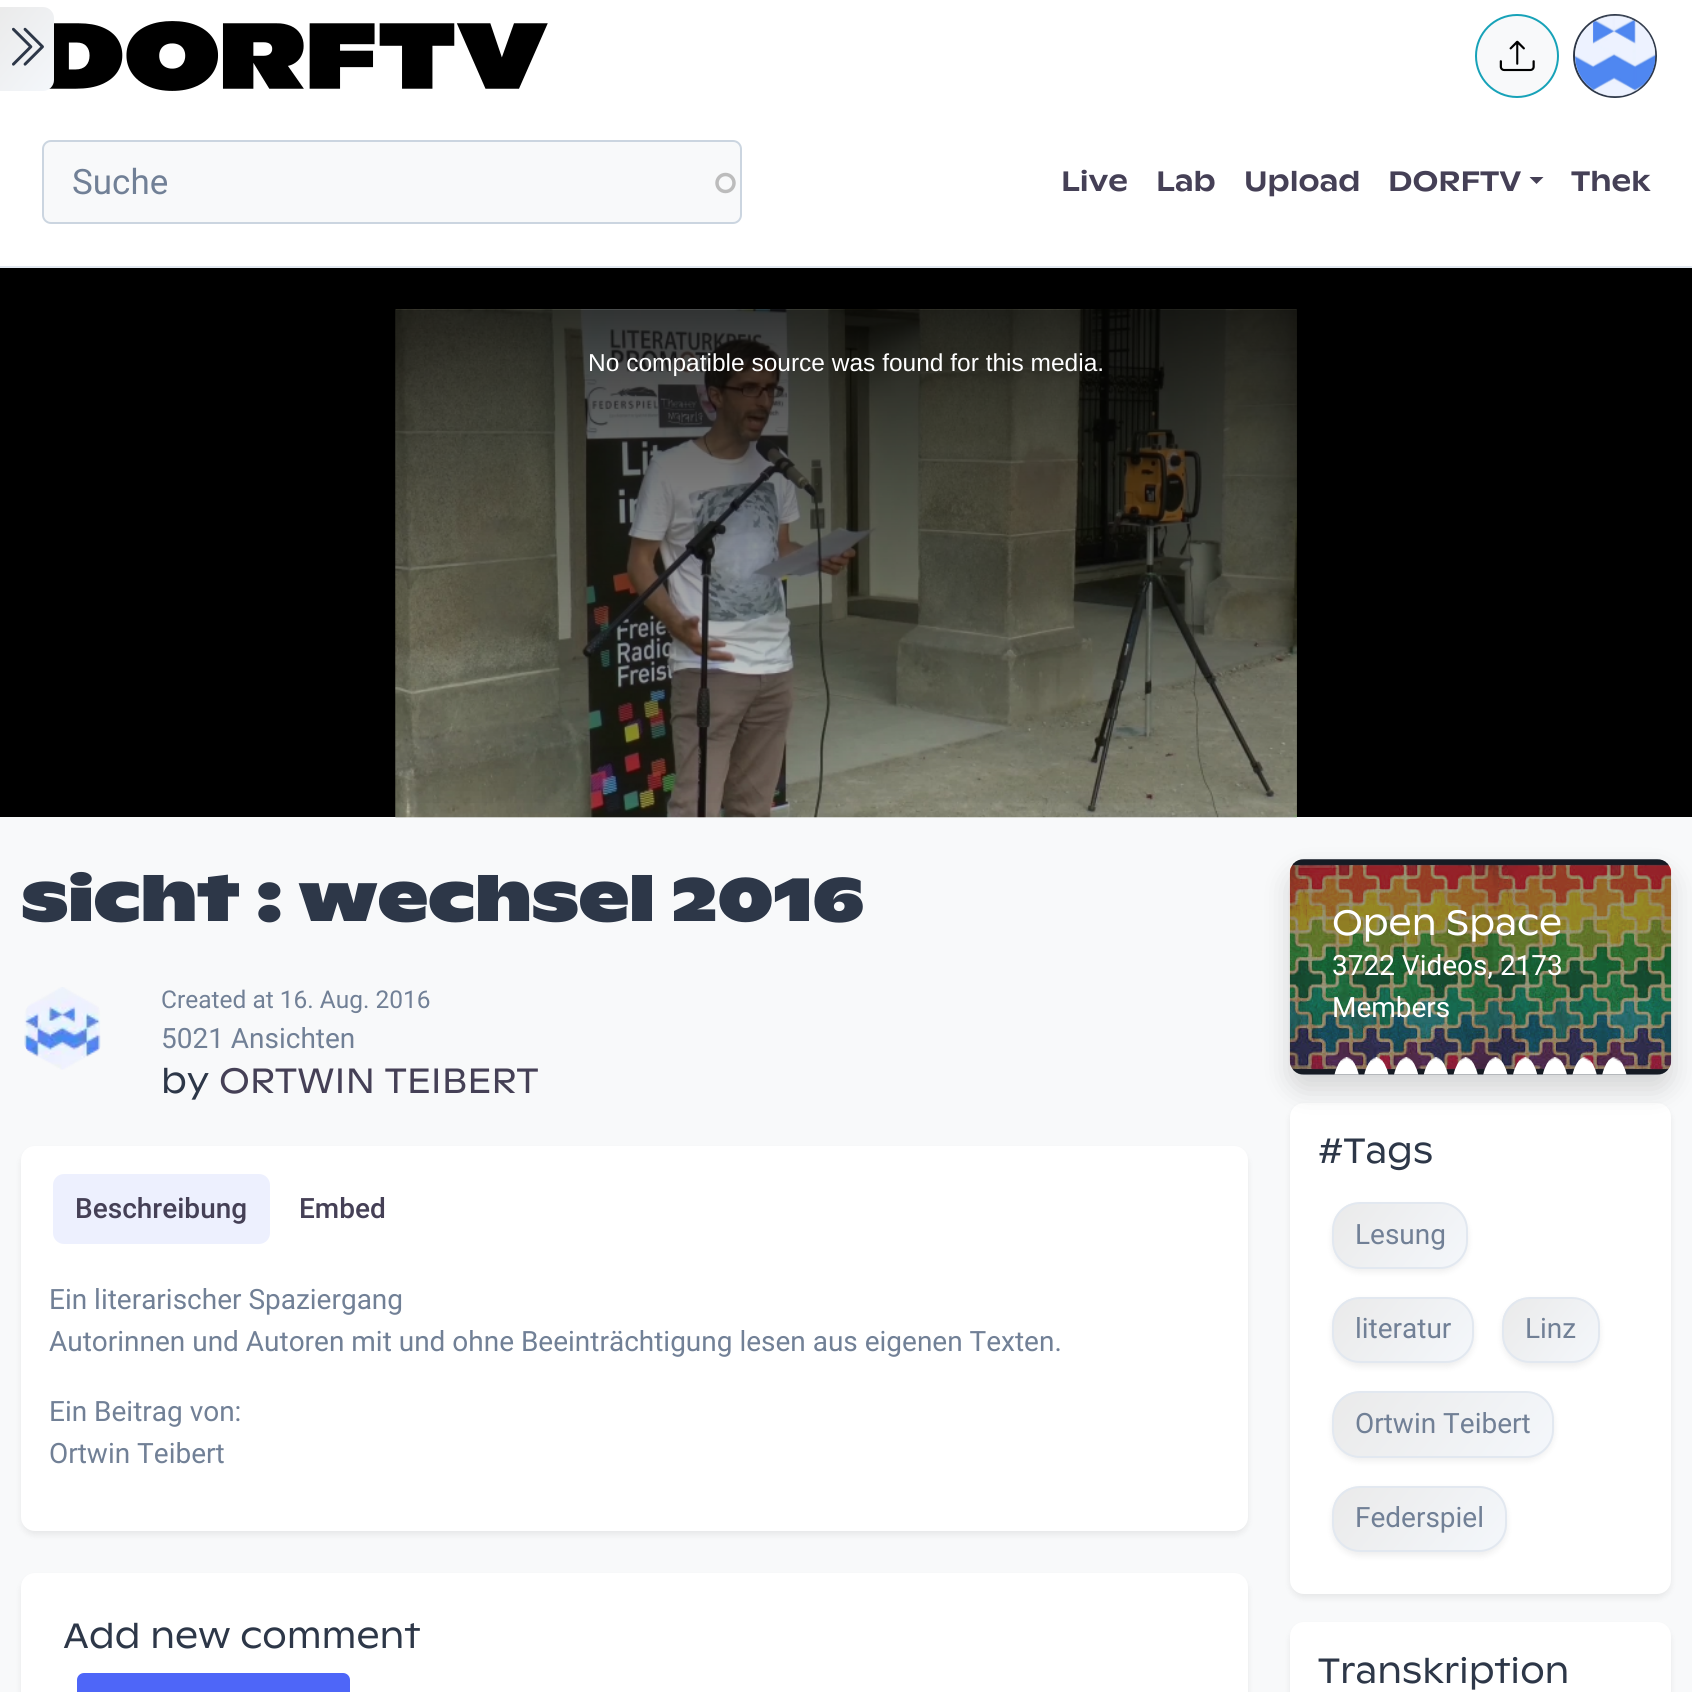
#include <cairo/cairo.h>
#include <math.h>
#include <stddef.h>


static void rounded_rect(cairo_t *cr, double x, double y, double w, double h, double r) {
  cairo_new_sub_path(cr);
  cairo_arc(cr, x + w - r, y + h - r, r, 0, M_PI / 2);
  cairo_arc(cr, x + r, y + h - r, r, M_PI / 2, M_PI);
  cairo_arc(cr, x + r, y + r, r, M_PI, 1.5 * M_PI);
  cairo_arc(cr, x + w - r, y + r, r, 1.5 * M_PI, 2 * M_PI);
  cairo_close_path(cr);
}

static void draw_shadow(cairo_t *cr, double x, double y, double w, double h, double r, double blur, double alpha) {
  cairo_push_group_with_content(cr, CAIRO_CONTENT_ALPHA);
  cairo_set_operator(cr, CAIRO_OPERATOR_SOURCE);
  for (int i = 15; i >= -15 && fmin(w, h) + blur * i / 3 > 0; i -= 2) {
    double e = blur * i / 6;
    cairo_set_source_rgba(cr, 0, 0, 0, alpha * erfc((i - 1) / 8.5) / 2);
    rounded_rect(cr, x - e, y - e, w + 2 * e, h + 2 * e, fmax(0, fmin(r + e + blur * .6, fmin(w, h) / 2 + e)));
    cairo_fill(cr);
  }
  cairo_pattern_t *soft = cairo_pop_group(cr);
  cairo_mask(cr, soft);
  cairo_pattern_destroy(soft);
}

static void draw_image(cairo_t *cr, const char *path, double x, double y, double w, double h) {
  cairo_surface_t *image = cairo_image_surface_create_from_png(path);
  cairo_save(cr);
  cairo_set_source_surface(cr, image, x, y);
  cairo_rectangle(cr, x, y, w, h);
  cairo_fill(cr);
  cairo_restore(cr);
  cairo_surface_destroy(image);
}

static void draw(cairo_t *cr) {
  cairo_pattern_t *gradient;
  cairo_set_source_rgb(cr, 248 / 255.0, 249 / 255.0, 250 / 255.0);
  cairo_paint(cr);
  cairo_set_source_rgb(cr, 1, 1, 1);
  cairo_rectangle(cr, 0, 0, 1692, 266);
  cairo_fill(cr);
  draw_image(cr, "images/2.png", 49, 21, 499, 70);
  gradient = cairo_pattern_create_linear(63, 81, -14, 17);
  cairo_pattern_add_color_stop_rgba(gradient, 0, 244 / 255.0, 247 / 255.0, 251 / 255.0, 1);
  cairo_pattern_add_color_stop_rgba(gradient, 1, 234 / 255.0, 234 / 255.0, 234 / 255.0, 1);
  cairo_set_source(cr, gradient);
  cairo_pattern_destroy(gradient);
  cairo_new_path(cr);
  cairo_move_to(cr, -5, 7);
  cairo_line_to(cr, 43, 7);
  cairo_curve_to(cr, 49, 7, 54, 12, 54, 18);
  cairo_line_to(cr, 54, 80);
  cairo_curve_to(cr, 54, 86, 49, 91, 43, 91);
  cairo_line_to(cr, -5, 91);
  cairo_close_path(cr);
  cairo_fill(cr);
  draw_image(cr, "images/1.png", 12, 27, 32, 39);
  cairo_set_source_rgb(cr, 248 / 255.0, 249 / 255.0, 250 / 255.0);
  cairo_arc(cr, 1517, 56, 41, 0, 2 * M_PI);
  cairo_fill_preserve(cr);
  cairo_set_source_rgb(cr, 23 / 255.0, 162 / 255.0, 184 / 255.0);
  cairo_stroke(cr);
  draw_image(cr, "images/3.png", 1499, 40, 36, 32);
  cairo_arc(cr, 1615, 56, 41, 0, 2 * M_PI);
  cairo_set_source_rgb(cr, 45 / 255.0, 55 / 255.0, 72 / 255.0);
  cairo_stroke(cr);
  draw_image(cr, "images/4.png", 1575, 15, 81, 82);
  cairo_set_source_rgb(cr, 226 / 255.0, 232 / 255.0, 240 / 255.0);
  cairo_rectangle(cr, 0, 266, 1692, 2);
  cairo_fill(cr);
  cairo_set_source_rgb(cr, 248 / 255.0, 249 / 255.0, 250 / 255.0);
  rounded_rect(cr, 44, 142, 696, 80, 7);
  cairo_fill(cr);
  cairo_arc(cr, 725.5, 183, 8.5, 0, 2 * M_PI);
  cairo_set_source_rgb(cr, 188 / 255.0, 188 / 255.0, 188 / 255.0);
  cairo_set_line_width(cr, 3.5);
  cairo_stroke(cr);
  rounded_rect(cr, 43, 141, 698, 82, 8);
  cairo_set_source_rgb(cr, 203 / 255.0, 213 / 255.0, 224 / 255.0);
  cairo_set_line_width(cr, 2);
  cairo_stroke(cr);
  cairo_set_source_rgb(cr, 69 / 255.0, 64 / 255.0, 86 / 255.0);
  cairo_new_path(cr);
  cairo_move_to(cr, 1529.5, 177);
  cairo_line_to(cr, 1543.5, 177);
  cairo_line_to(cr, 1536.5, 184);
  cairo_close_path(cr);
  cairo_fill(cr);
  cairo_set_source_rgb(cr, 0, 0, 0);
  cairo_rectangle(cr, 0, 268, 1692, 549);
  cairo_fill(cr);
  draw_image(cr, "images/5.png", 395, 309, 902, 509);
  draw_image(cr, "images/6.png", 395, 309, 902, 509);
  gradient = cairo_pattern_create_linear(846, 310, 846, 817);
  cairo_pattern_add_color_stop_rgba(gradient, 0, 0, 0, 0, 0.8);
  cairo_pattern_add_color_stop_rgba(gradient, 1, 0, 0, 0, 0);
  cairo_set_source(cr, gradient);
  cairo_pattern_destroy(gradient);
  cairo_rectangle(cr, 395, 310, 902, 493);
  cairo_fill(cr);
  draw_image(cr, "images/7.png", 24, 987, 77, 83);
  cairo_set_source_rgb(cr, 0, 0, 0);
  draw_shadow(cr, 21, 1150, 1227, 385, 14, 3.5, 0.07);
  cairo_set_source_rgb(cr, 1, 1, 1);
  rounded_rect(cr, 21, 1146, 1227, 385, 14);
  cairo_fill(cr);
  cairo_set_source_rgb(cr, 237 / 255.0, 240 / 255.0, 254 / 255.0);
  rounded_rect(cr, 53, 1174, 217, 70, 11);
  cairo_fill(cr);
  cairo_set_source_rgb(cr, 0, 0, 0);
  draw_shadow(cr, 21, 1577, 1227, 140, 14, 3.5, 0.07);
  cairo_set_source_rgb(cr, 1, 1, 1);
  rounded_rect(cr, 21, 1573, 1227, 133, 14);
  cairo_fill(cr);
  cairo_set_source_rgb(cr, 78 / 255.0, 102 / 255.0, 248 / 255.0);
  rounded_rect(cr, 78, 1674, 271, 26, 6);
  cairo_fill_preserve(cr);
  cairo_stroke(cr);
  cairo_set_source_rgb(cr, 1, 1, 1);
  rounded_rect(cr, 1290, 859, 381, 216, 11);
  cairo_fill(cr);
  cairo_set_source_rgb(cr, 0, 0, 0);
  draw_shadow(cr, 1290, 1106, 381, 492, 14, 3.5, 0.07);
  cairo_set_source_rgb(cr, 1, 1, 1);
  rounded_rect(cr, 1290, 1103, 381, 491, 14);
  cairo_fill(cr);
  cairo_set_source_rgb(cr, 0, 0, 0);
  draw_shadow(cr, 1290, 873, 381, 216, 14, 14, 0.15);
  draw_image(cr, "images/8.png", 1289, 859, 383, 216);
  cairo_set_source_rgba(cr, 45 / 255.0, 55 / 255.0, 72 / 255.0, 0.5);
  rounded_rect(cr, 1290, 859, 381, 216, 14);
  cairo_fill(cr);
  draw_image(cr, "images/9.png", 1334, 1057, 25, 18);
  draw_image(cr, "images/10.png", 1364, 1057, 25, 18);
  draw_image(cr, "images/11.png", 1394, 1057, 25, 18);
  draw_image(cr, "images/12.png", 1423, 1057, 25, 18);
  draw_image(cr, "images/13.png", 1453, 1057, 25, 18);
  draw_image(cr, "images/14.png", 1483, 1057, 25, 18);
  draw_image(cr, "images/15.png", 1513, 1057, 25, 18);
  draw_image(cr, "images/16.png", 1542, 1057, 25, 18);
  draw_image(cr, "images/17.png", 1572, 1057, 25, 18);
  draw_image(cr, "images/18.png", 1602, 1057, 25, 18);
  cairo_set_source_rgb(cr, 0, 0, 0);
  draw_shadow(cr, 1332, 1206, 136, 66, 28, 3.5, 0.07);
  cairo_save(cr);
  rounded_rect(cr, 1332, 1202, 136, 67, 28);
  cairo_clip(cr);
  gradient = cairo_pattern_create_linear(1455, 1281, 1345, 1190);
  cairo_pattern_add_color_stop_rgba(gradient, 0, 244 / 255.0, 247 / 255.0, 251 / 255.0, 1);
  cairo_pattern_add_color_stop_rgba(gradient, 1, 234 / 255.0, 234 / 255.0, 234 / 255.0, 1);
  cairo_set_source(cr, gradient);
  cairo_pattern_destroy(gradient);
  cairo_rectangle(cr, 1334, 1204, 133, 63);
  cairo_fill(cr);
  cairo_restore(cr);
  rounded_rect(cr, 1333, 1203, 134, 65, 27);
  cairo_set_source_rgb(cr, 226 / 255.0, 232 / 255.0, 240 / 255.0);
  cairo_stroke(cr);
  cairo_set_source_rgb(cr, 0, 0, 0);
  draw_shadow(cr, 1332, 1300, 142, 67, 28, 3.5, 0.07);
  cairo_save(cr);
  rounded_rect(cr, 1332, 1297, 142, 66, 28);
  cairo_clip(cr);
  gradient = cairo_pattern_create_linear(1459, 1377, 1347, 1283);
  cairo_pattern_add_color_stop_rgba(gradient, 0, 244 / 255.0, 247 / 255.0, 251 / 255.0, 1);
  cairo_pattern_add_color_stop_rgba(gradient, 1, 234 / 255.0, 234 / 255.0, 234 / 255.0, 1);
  cairo_set_source(cr, gradient);
  cairo_pattern_destroy(gradient);
  cairo_rectangle(cr, 1334, 1299, 138, 63);
  cairo_fill(cr);
  cairo_restore(cr);
  rounded_rect(cr, 1333, 1298, 140, 64, 27);
  cairo_set_source_rgb(cr, 226 / 255.0, 232 / 255.0, 240 / 255.0);
  cairo_stroke(cr);
  cairo_set_source_rgb(cr, 0, 0, 0);
  draw_shadow(cr, 1502, 1300, 98, 67, 28, 3.5, 0.07);
  cairo_save(cr);
  rounded_rect(cr, 1502, 1297, 98, 66, 28);
  cairo_clip(cr);
  gradient = cairo_pattern_create_linear(1594, 1366, 1507, 1294);
  cairo_pattern_add_color_stop_rgba(gradient, 0, 244 / 255.0, 247 / 255.0, 251 / 255.0, 1);
  cairo_pattern_add_color_stop_rgba(gradient, 1, 234 / 255.0, 234 / 255.0, 234 / 255.0, 1);
  cairo_set_source(cr, gradient);
  cairo_pattern_destroy(gradient);
  cairo_rectangle(cr, 1503, 1299, 95, 63);
  cairo_fill(cr);
  cairo_restore(cr);
  rounded_rect(cr, 1503, 1298, 96, 64, 27);
  cairo_set_source_rgb(cr, 226 / 255.0, 232 / 255.0, 240 / 255.0);
  cairo_stroke(cr);
  cairo_set_source_rgb(cr, 0, 0, 0);
  draw_shadow(cr, 1332, 1395, 222, 66, 28, 3.5, 0.07);
  cairo_save(cr);
  rounded_rect(cr, 1332, 1391, 222, 67, 28);
  cairo_clip(cr);
  gradient = cairo_pattern_create_linear(1523, 1491, 1363, 1358);
  cairo_pattern_add_color_stop_rgba(gradient, 0, 244 / 255.0, 247 / 255.0, 251 / 255.0, 1);
  cairo_pattern_add_color_stop_rgba(gradient, 1, 234 / 255.0, 234 / 255.0, 234 / 255.0, 1);
  cairo_set_source(cr, gradient);
  cairo_pattern_destroy(gradient);
  cairo_rectangle(cr, 1334, 1393, 218, 63);
  cairo_fill(cr);
  cairo_restore(cr);
  rounded_rect(cr, 1333, 1392, 220, 65, 27);
  cairo_set_source_rgb(cr, 226 / 255.0, 232 / 255.0, 240 / 255.0);
  cairo_stroke(cr);
  cairo_set_source_rgb(cr, 0, 0, 0);
  draw_shadow(cr, 1332, 1489, 175, 67, 28, 3.5, 0.07);
  cairo_save(cr);
  rounded_rect(cr, 1332, 1486, 175, 66, 28);
  cairo_clip(cr);
  gradient = cairo_pattern_create_linear(1485, 1574, 1353, 1464);
  cairo_pattern_add_color_stop_rgba(gradient, 0, 244 / 255.0, 247 / 255.0, 251 / 255.0, 1);
  cairo_pattern_add_color_stop_rgba(gradient, 1, 234 / 255.0, 234 / 255.0, 234 / 255.0, 1);
  cairo_set_source(cr, gradient);
  cairo_pattern_destroy(gradient);
  cairo_rectangle(cr, 1334, 1488, 171, 63);
  cairo_fill(cr);
  cairo_restore(cr);
  rounded_rect(cr, 1333, 1487, 173, 64, 27);
  cairo_set_source_rgb(cr, 226 / 255.0, 232 / 255.0, 240 / 255.0);
  cairo_stroke(cr);
  cairo_set_source_rgb(cr, 0, 0, 0);
  draw_shadow(cr, 1290, 1626, 381, 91, 14, 3.5, 0.07);
  cairo_set_source_rgb(cr, 1, 1, 1);
  rounded_rect(cr, 1290, 1622, 381, 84, 14);
  cairo_fill(cr);
  cairo_select_font_face(cr, "Roboto", CAIRO_FONT_SLANT_NORMAL, CAIRO_FONT_WEIGHT_NORMAL);
  cairo_set_font_size(cr, 35);
  cairo_set_source_rgb(cr, 113 / 255.0, 128 / 255.0, 150 / 255.0);
  cairo_move_to(cr, 72, 194);
  cairo_show_text(cr, "Suche");
  cairo_select_font_face(cr, "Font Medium", CAIRO_FONT_SLANT_NORMAL, CAIRO_FONT_WEIGHT_NORMAL);
  cairo_set_font_size(cr, 28);
  cairo_set_source_rgb(cr, 69 / 255.0, 64 / 255.0, 86 / 255.0);
  cairo_move_to(cr, 1061, 191);
  cairo_show_text(cr, "Live");
  cairo_move_to(cr, 1156, 191);
  cairo_show_text(cr, "Lab");
  cairo_move_to(cr, 1244, 191);
  cairo_show_text(cr, "Upload");
  cairo_move_to(cr, 1388, 191);
  cairo_show_text(cr, "DORFTV");
  cairo_move_to(cr, 1571, 191);
  cairo_show_text(cr, "Thek");
  cairo_select_font_face(cr, "Liberation Sans", CAIRO_FONT_SLANT_NORMAL, CAIRO_FONT_WEIGHT_NORMAL);
  cairo_set_font_size(cr, 24.5);
  cairo_set_source_rgb(cr, 1, 1, 1);
  cairo_move_to(cr, 588, 371);
  cairo_show_text(cr, "No compatible source was found for this media.");
  cairo_select_font_face(cr, "Font ExtraBold", CAIRO_FONT_SLANT_NORMAL, CAIRO_FONT_WEIGHT_NORMAL);
  cairo_set_font_size(cr, 63.9);
  cairo_set_source_rgb(cr, 45 / 255.0, 55 / 255.0, 72 / 255.0);
  cairo_move_to(cr, 21, 921);
  cairo_show_text(cr, "sicht : wechsel 2016");
  cairo_select_font_face(cr, "Roboto", CAIRO_FONT_SLANT_NORMAL, CAIRO_FONT_WEIGHT_NORMAL);
  cairo_set_font_size(cr, 24.5);
  cairo_set_source_rgb(cr, 113 / 255.0, 128 / 255.0, 150 / 255.0);
  cairo_move_to(cr, 161, 1008);
  cairo_show_text(cr, "Created at 16. Aug. 2016");
  cairo_set_font_size(cr, 28);
  cairo_move_to(cr, 161, 1048);
  cairo_show_text(cr, "5021 Ansichten");
  cairo_select_font_face(cr, "Font", CAIRO_FONT_SLANT_NORMAL, CAIRO_FONT_WEIGHT_NORMAL);
  cairo_set_font_size(cr, 35);
  cairo_set_source_rgb(cr, 45 / 255.0, 55 / 255.0, 72 / 255.0);
  cairo_move_to(cr, 161, 1093);
  cairo_show_text(cr, "by");
  cairo_set_source_rgb(cr, 69 / 255.0, 64 / 255.0, 86 / 255.0);
  cairo_move_to(cr, 219, 1093);
  cairo_show_text(cr, "ORTWIN TEIBERT");
  cairo_select_font_face(cr, "Roboto Medium", CAIRO_FONT_SLANT_NORMAL, CAIRO_FONT_WEIGHT_NORMAL);
  cairo_set_font_size(cr, 28);
  cairo_move_to(cr, 75, 1218);
  cairo_show_text(cr, "Beschreibung");
  cairo_move_to(cr, 299, 1218);
  cairo_show_text(cr, "Embed");
  cairo_select_font_face(cr, "Roboto", CAIRO_FONT_SLANT_NORMAL, CAIRO_FONT_WEIGHT_NORMAL);
  cairo_set_source_rgb(cr, 113 / 255.0, 128 / 255.0, 150 / 255.0);
  cairo_move_to(cr, 49, 1309);
  cairo_show_text(cr, "Ein literarischer Spaziergang");
  cairo_move_to(cr, 49, 1351);
  cairo_show_text(cr, "Autorinnen und Autoren mit und ohne Beeinträchtigung lesen aus eigenen Texten.");
  cairo_move_to(cr, 49, 1421);
  cairo_show_text(cr, "Ein Beitrag von:");
  cairo_move_to(cr, 49, 1463);
  cairo_show_text(cr, "Ortwin Teibert");
  cairo_select_font_face(cr, "Font", CAIRO_FONT_SLANT_NORMAL, CAIRO_FONT_WEIGHT_NORMAL);
  cairo_set_font_size(cr, 35);
  cairo_set_source_rgb(cr, 45 / 255.0, 55 / 255.0, 72 / 255.0);
  cairo_move_to(cr, 63, 1648);
  cairo_show_text(cr, "Add new comment");
  cairo_set_source_rgb(cr, 1, 1, 1);
  cairo_move_to(cr, 1332, 935);
  cairo_show_text(cr, "Open Space");
  cairo_select_font_face(cr, "Roboto", CAIRO_FONT_SLANT_NORMAL, CAIRO_FONT_WEIGHT_NORMAL);
  cairo_set_font_size(cr, 28);
  cairo_move_to(cr, 1332, 975);
  cairo_show_text(cr, "3722 Videos, 2173");
  cairo_move_to(cr, 1332, 1017);
  cairo_show_text(cr, "Members");
  cairo_select_font_face(cr, "Font", CAIRO_FONT_SLANT_NORMAL, CAIRO_FONT_WEIGHT_NORMAL);
  cairo_set_font_size(cr, 35);
  cairo_set_source_rgb(cr, 45 / 255.0, 55 / 255.0, 72 / 255.0);
  cairo_move_to(cr, 1318, 1163);
  cairo_show_text(cr, "#Tags");
  cairo_select_font_face(cr, "Roboto", CAIRO_FONT_SLANT_NORMAL, CAIRO_FONT_WEIGHT_NORMAL);
  cairo_set_font_size(cr, 28);
  cairo_set_source_rgb(cr, 113 / 255.0, 128 / 255.0, 150 / 255.0);
  cairo_move_to(cr, 1355, 1244);
  cairo_show_text(cr, "Lesung");
  cairo_move_to(cr, 1355, 1338);
  cairo_show_text(cr, "literatur");
  cairo_move_to(cr, 1525, 1338);
  cairo_show_text(cr, "Linz");
  cairo_move_to(cr, 1355, 1433);
  cairo_show_text(cr, "Ortwin Teibert");
  cairo_move_to(cr, 1355, 1527);
  cairo_show_text(cr, "Federspiel");
  cairo_select_font_face(cr, "Font", CAIRO_FONT_SLANT_NORMAL, CAIRO_FONT_WEIGHT_NORMAL);
  cairo_set_font_size(cr, 35);
  cairo_set_source_rgb(cr, 45 / 255.0, 55 / 255.0, 72 / 255.0);
  cairo_move_to(cr, 1318, 1683);
  cairo_show_text(cr, "Transkription");
}

int main(void) {
  cairo_surface_t *surface = cairo_image_surface_create(CAIRO_FORMAT_RGB24, 1692, 1692);
  cairo_t *cr = cairo_create(surface);
  cairo_font_options_t *options = cairo_font_options_create();
  cairo_font_options_set_hint_metrics(options, CAIRO_HINT_METRICS_OFF);
  cairo_font_options_set_hint_style(options, CAIRO_HINT_STYLE_NONE);
  cairo_set_font_options(cr, options);
  cairo_set_miter_limit(cr, 4);
  draw(cr);
  cairo_surface_write_to_png(surface, "out.png");
  cairo_font_options_destroy(options);
  cairo_destroy(cr);
  cairo_surface_destroy(surface);
  return 0;
}
